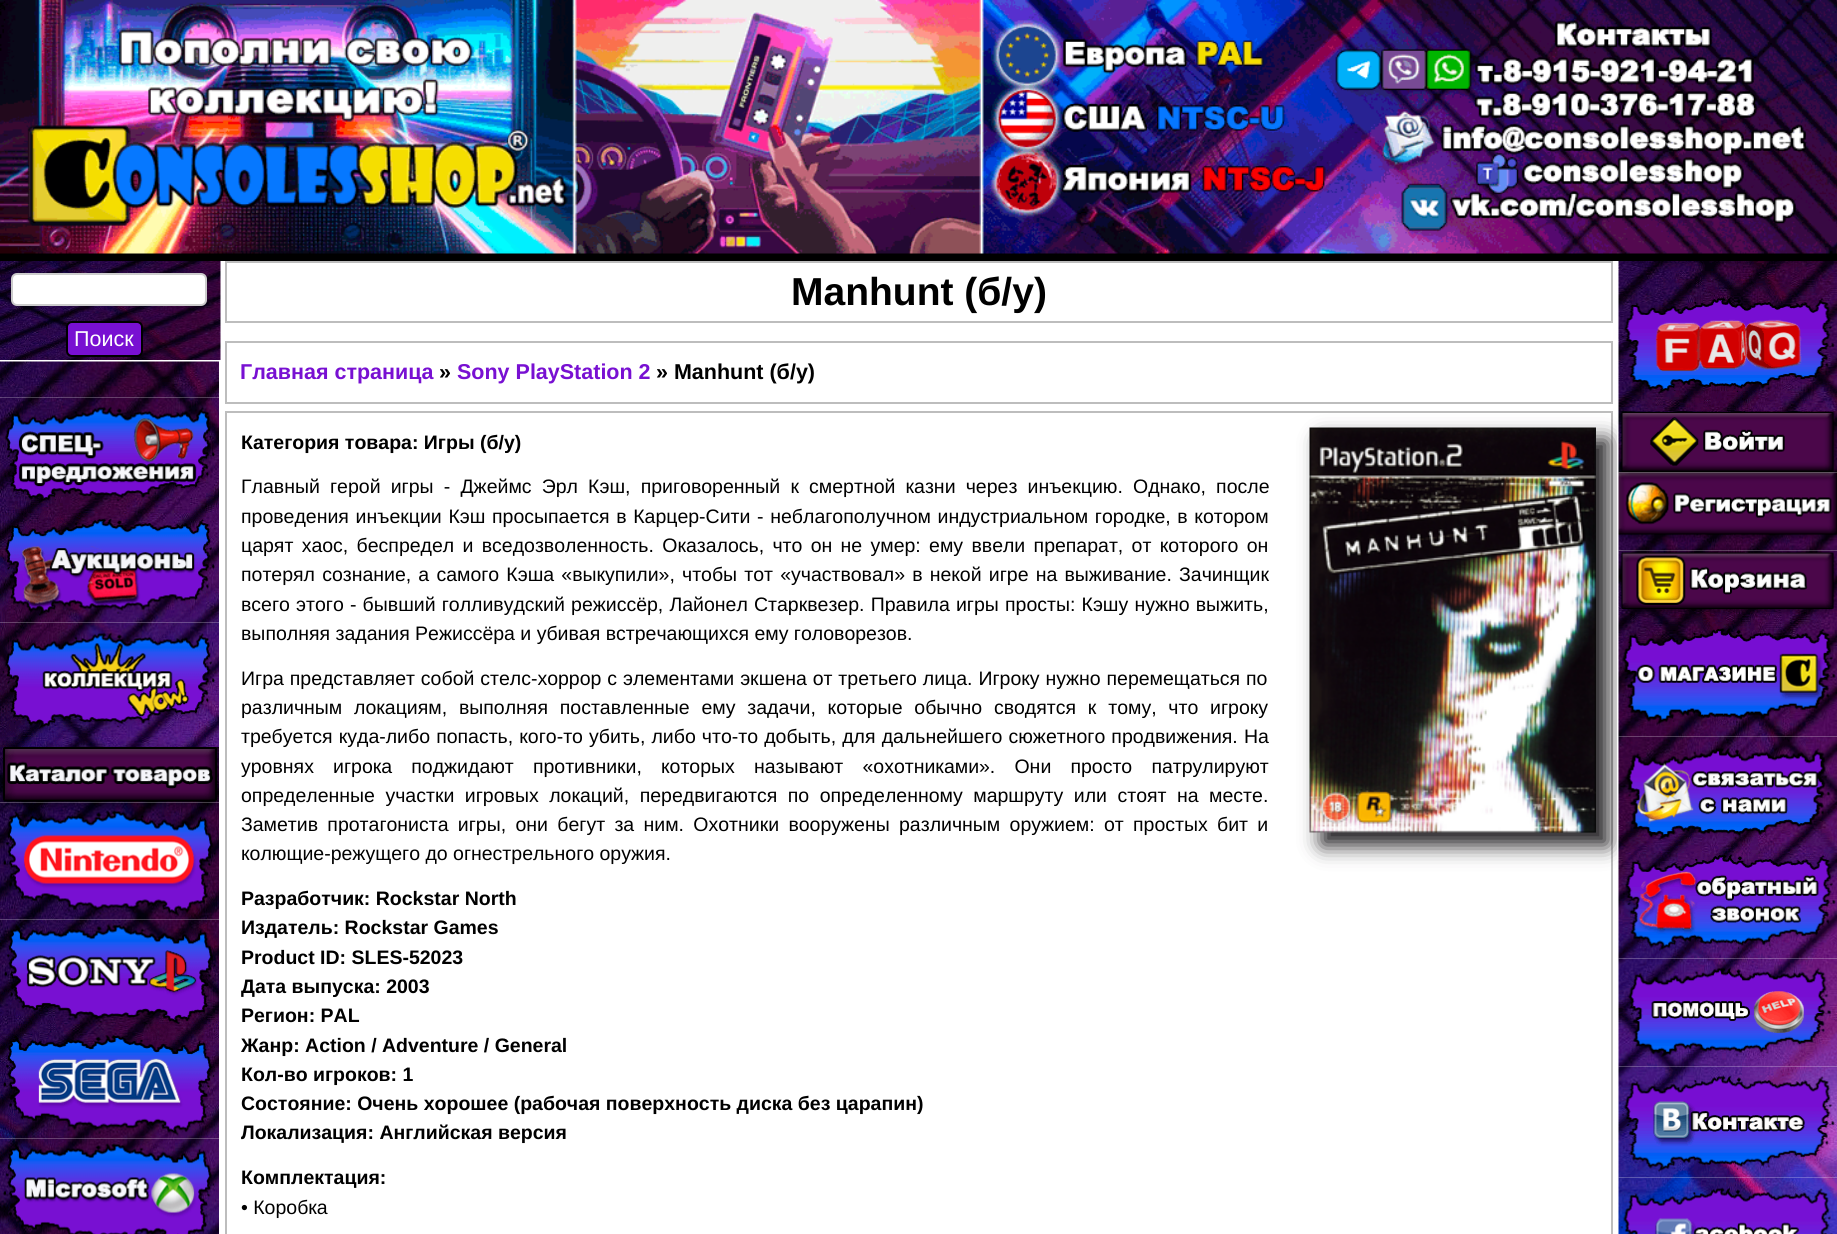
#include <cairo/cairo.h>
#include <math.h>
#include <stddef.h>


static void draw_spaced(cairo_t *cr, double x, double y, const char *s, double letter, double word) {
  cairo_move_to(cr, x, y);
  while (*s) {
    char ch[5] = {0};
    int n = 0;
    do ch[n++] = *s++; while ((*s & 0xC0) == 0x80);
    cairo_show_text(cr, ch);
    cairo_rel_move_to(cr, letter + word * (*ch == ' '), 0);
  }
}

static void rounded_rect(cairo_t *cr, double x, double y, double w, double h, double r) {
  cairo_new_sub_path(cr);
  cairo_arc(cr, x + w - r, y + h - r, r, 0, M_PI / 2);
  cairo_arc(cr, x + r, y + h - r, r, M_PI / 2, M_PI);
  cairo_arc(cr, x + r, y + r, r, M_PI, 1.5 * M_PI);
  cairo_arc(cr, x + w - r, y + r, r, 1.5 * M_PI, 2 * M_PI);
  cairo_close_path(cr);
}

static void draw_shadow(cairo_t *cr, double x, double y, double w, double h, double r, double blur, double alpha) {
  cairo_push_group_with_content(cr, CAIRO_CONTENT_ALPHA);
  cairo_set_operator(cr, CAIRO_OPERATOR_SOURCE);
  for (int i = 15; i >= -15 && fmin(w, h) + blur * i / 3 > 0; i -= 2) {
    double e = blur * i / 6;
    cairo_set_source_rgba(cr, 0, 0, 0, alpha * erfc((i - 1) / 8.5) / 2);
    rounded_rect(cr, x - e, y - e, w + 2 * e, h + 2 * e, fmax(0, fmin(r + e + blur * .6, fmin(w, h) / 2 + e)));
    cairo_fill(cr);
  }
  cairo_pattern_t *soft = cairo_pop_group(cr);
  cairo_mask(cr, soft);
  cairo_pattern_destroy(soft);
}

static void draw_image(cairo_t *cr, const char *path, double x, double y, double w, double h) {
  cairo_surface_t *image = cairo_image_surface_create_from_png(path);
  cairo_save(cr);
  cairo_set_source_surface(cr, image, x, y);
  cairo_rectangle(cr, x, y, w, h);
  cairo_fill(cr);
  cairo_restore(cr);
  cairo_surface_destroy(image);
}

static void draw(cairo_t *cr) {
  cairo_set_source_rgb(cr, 1, 1, 1);
  cairo_paint(cr);
  cairo_set_source_rgb(cr, 0, 0, 0);
  cairo_rectangle(cr, 0, 253, 1837, 8);
  cairo_fill(cr);
  draw_image(cr, "images/1.png", 0, 0, 1837, 254);
  draw_image(cr, "images/2.png", 0, 261, 221, 99);
  cairo_set_source_rgb(cr, 1, 1, 1);
  rounded_rect(cr, 12, 274, 194, 31, 5);
  cairo_fill_preserve(cr);
  cairo_set_source_rgb(cr, 204 / 255.0, 204 / 255.0, 204 / 255.0);
  cairo_stroke(cr);
  cairo_set_source_rgb(cr, 120 / 255.0, 16 / 255.0, 210 / 255.0);
  rounded_rect(cr, 67, 322, 75, 34, 5);
  cairo_fill_preserve(cr);
  cairo_set_source_rgb(cr, 0, 0, 0);
  cairo_stroke(cr);
  draw_image(cr, "images/3.png", 0, 361, 219, 37);
  draw_image(cr, "images/4.png", 0, 397, 219, 113);
  draw_image(cr, "images/5.png", 0, 510, 219, 113);
  draw_image(cr, "images/6.png", 0, 622, 219, 125);
  draw_image(cr, "images/7.png", 0, 747, 219, 56);
  draw_image(cr, "images/8.png", 0, 802, 219, 118);
  draw_image(cr, "images/9.png", 0, 919, 219, 110);
  draw_image(cr, "images/10.png", 0, 1029, 219, 110);
  draw_image(cr, "images/11.png", 0, 1138, 219, 96);
  cairo_rectangle(cr, 226, 262, 1386, 60);
  cairo_set_source_rgb(cr, 189 / 255.0, 189 / 255.0, 189 / 255.0);
  cairo_stroke(cr);
  cairo_rectangle(cr, 226, 342, 1386, 61);
  cairo_stroke(cr);
  cairo_rectangle(cr, 226, 412, 1386, 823);
  cairo_stroke(cr);
  cairo_set_source_rgb(cr, 27 / 255.0, 25 / 255.0, 28 / 255.0);
  draw_shadow(cr, 1322, 440, 286, 405, 0, 10.5, 1);
  draw_image(cr, "images/12.png", 1309, 427, 287, 406);
  draw_image(cr, "images/13.png", 1618, 261, 219, 150);
  cairo_set_source_rgb(cr, 1, 1, 1);
  cairo_rectangle(cr, 1617, 424, 15, 437);
  cairo_fill(cr);
  draw_image(cr, "images/14.png", 1618, 411, 219, 62);
  draw_image(cr, "images/15.png", 1618, 472, 219, 79);
  draw_image(cr, "images/16.png", 1618, 550, 219, 62);
  draw_image(cr, "images/18.png", 1618, 736, 219, 110);
  draw_image(cr, "images/17.png", 1618, 612, 219, 125);
  draw_image(cr, "images/19.png", 1618, 846, 219, 113);
  draw_image(cr, "images/20.png", 1618, 958, 219, 109);
  draw_image(cr, "images/21.png", 1618, 1066, 219, 112);
  draw_image(cr, "images/22.png", 1618, 1177, 219, 57);
  cairo_select_font_face(cr, "Liberation Sans", CAIRO_FONT_SLANT_NORMAL, CAIRO_FONT_WEIGHT_NORMAL);
  cairo_set_font_size(cr, 21.5);
  cairo_move_to(cr, 74, 346);
  cairo_show_text(cr, "Поиск");
  cairo_select_font_face(cr, "Liberation Sans", CAIRO_FONT_SLANT_NORMAL, CAIRO_FONT_WEIGHT_BOLD);
  cairo_set_font_size(cr, 39);
  cairo_set_source_rgb(cr, 0, 0, 0);
  cairo_move_to(cr, 791, 305);
  cairo_show_text(cr, "Manhunt (б/у)");
  cairo_set_font_size(cr, 21.5);
  cairo_set_source_rgb(cr, 120 / 255.0, 16 / 255.0, 210 / 255.0);
  cairo_move_to(cr, 240, 379);
  cairo_show_text(cr, "Главная страница");
  cairo_set_source_rgb(cr, 0, 0, 0);
  cairo_move_to(cr, 439, 379);
  cairo_show_text(cr, "»");
  cairo_set_source_rgb(cr, 120 / 255.0, 16 / 255.0, 210 / 255.0);
  cairo_move_to(cr, 457, 379);
  cairo_show_text(cr, "Sony PlayStation 2");
  cairo_set_source_rgb(cr, 0, 0, 0);
  cairo_move_to(cr, 656, 379);
  cairo_show_text(cr, "» Manhunt (б/у)");
  cairo_set_font_size(cr, 19.5);
  cairo_move_to(cr, 241, 449);
  cairo_show_text(cr, "Категория товара: Игры (б/у)");
  cairo_select_font_face(cr, "Liberation Sans", CAIRO_FONT_SLANT_NORMAL, CAIRO_FONT_WEIGHT_NORMAL);
  draw_spaced(cr, 241, 493, "Главный герой игры - Джеймс Эрл Кэш, приговоренный к смертной казни через инъекцию. Однако, после", 0, 4.75);
  draw_spaced(cr, 241, 523, "проведения инъекции Кэш просыпается в Карцер-Сити - неблагополучном индустриальном городке, в котором", 0, 1.25);
  draw_spaced(cr, 241, 552, "царят хаос, беспредел и вседозволенность. Оказалось, что он не умер: ему ввели препарат, от которого он", 0, 2.9);
  draw_spaced(cr, 241, 581, "потерял сознание, а самого Кэша «выкупили», чтобы тот «участвовал» в некой игре на выживание. Зачинщик", 0, 1.75);
  draw_spaced(cr, 241, 611, "всего этого - бывший голливудский режиссёр, Лайонел Старквезер. Правила игры просты: Кэшу нужно выжить,", 0, 0.75);
  cairo_move_to(cr, 241, 640);
  cairo_show_text(cr, "выполняя задания Режиссёра и убивая встречающихся ему головорезов.");
  draw_spaced(cr, 241, 685, "Игра представляет собой стелс-хоррор с элементами экшена от третьего лица. Игроку нужно перемещаться по", 0, 0.5);
  draw_spaced(cr, 241, 714, "различным локациям, выполняя поставленные ему задачи, которые обычно сводятся к тому, что игроку", 0, 6.4);
  draw_spaced(cr, 241, 743, "требуется куда-либо попасть, кого-то убить, либо что-то добыть, для дальнейшего сюжетного продвижения. На", 0, 0.7);
  draw_spaced(cr, 241, 773, "уровнях игрока поджидают противники, которых называют «охотниками». Они просто патрулируют", 0, 13.75);
  draw_spaced(cr, 241, 802, "определенные участки игровых локаций, передвигаются по определенному маршруту или стоят на месте.", 0, 5.1);
  draw_spaced(cr, 241, 831, "Заметив протагониста игры, они бегут за ним. Охотники вооружены различным оружием: от простых бит и", 0, 3.9);
  cairo_move_to(cr, 241, 860);
  cairo_show_text(cr, "колющие-режущего до огнестрельного оружия.");
  cairo_select_font_face(cr, "Liberation Sans", CAIRO_FONT_SLANT_NORMAL, CAIRO_FONT_WEIGHT_BOLD);
  cairo_move_to(cr, 241, 905);
  cairo_show_text(cr, "Разработчик: Rockstar North");
  cairo_move_to(cr, 241, 934);
  cairo_show_text(cr, "Издатель: Rockstar Games");
  cairo_move_to(cr, 241, 964);
  cairo_show_text(cr, "Product ID: SLES-52023");
  cairo_move_to(cr, 241, 993);
  cairo_show_text(cr, "Дата выпуска: 2003");
  cairo_move_to(cr, 241, 1022);
  cairo_show_text(cr, "Регион: PAL");
  cairo_move_to(cr, 241, 1052);
  cairo_show_text(cr, "Жанр: Action / Adventure / General");
  cairo_move_to(cr, 241, 1081);
  cairo_show_text(cr, "Кол-во игроков: 1");
  cairo_move_to(cr, 241, 1110);
  cairo_show_text(cr, "Состояние: Очень хорошее (рабочая поверхность диска без царапин)");
  cairo_move_to(cr, 241, 1139);
  cairo_show_text(cr, "Локализация: Английская версия");
  cairo_move_to(cr, 241, 1184);
  cairo_show_text(cr, "Комплектация:");
  cairo_select_font_face(cr, "Liberation Sans", CAIRO_FONT_SLANT_NORMAL, CAIRO_FONT_WEIGHT_NORMAL);
  cairo_move_to(cr, 241, 1214);
  cairo_show_text(cr, "• Коробка");
}

int main(void) {
  cairo_surface_t *surface = cairo_image_surface_create(CAIRO_FORMAT_RGB24, 1837, 1234);
  cairo_t *cr = cairo_create(surface);
  cairo_font_options_t *options = cairo_font_options_create();
  cairo_font_options_set_hint_metrics(options, CAIRO_HINT_METRICS_OFF);
  cairo_font_options_set_hint_style(options, CAIRO_HINT_STYLE_NONE);
  cairo_set_font_options(cr, options);
  cairo_set_miter_limit(cr, 4);
  draw(cr);
  cairo_surface_write_to_png(surface, "out.png");
  cairo_font_options_destroy(options);
  cairo_destroy(cr);
  cairo_surface_destroy(surface);
  return 0;
}
